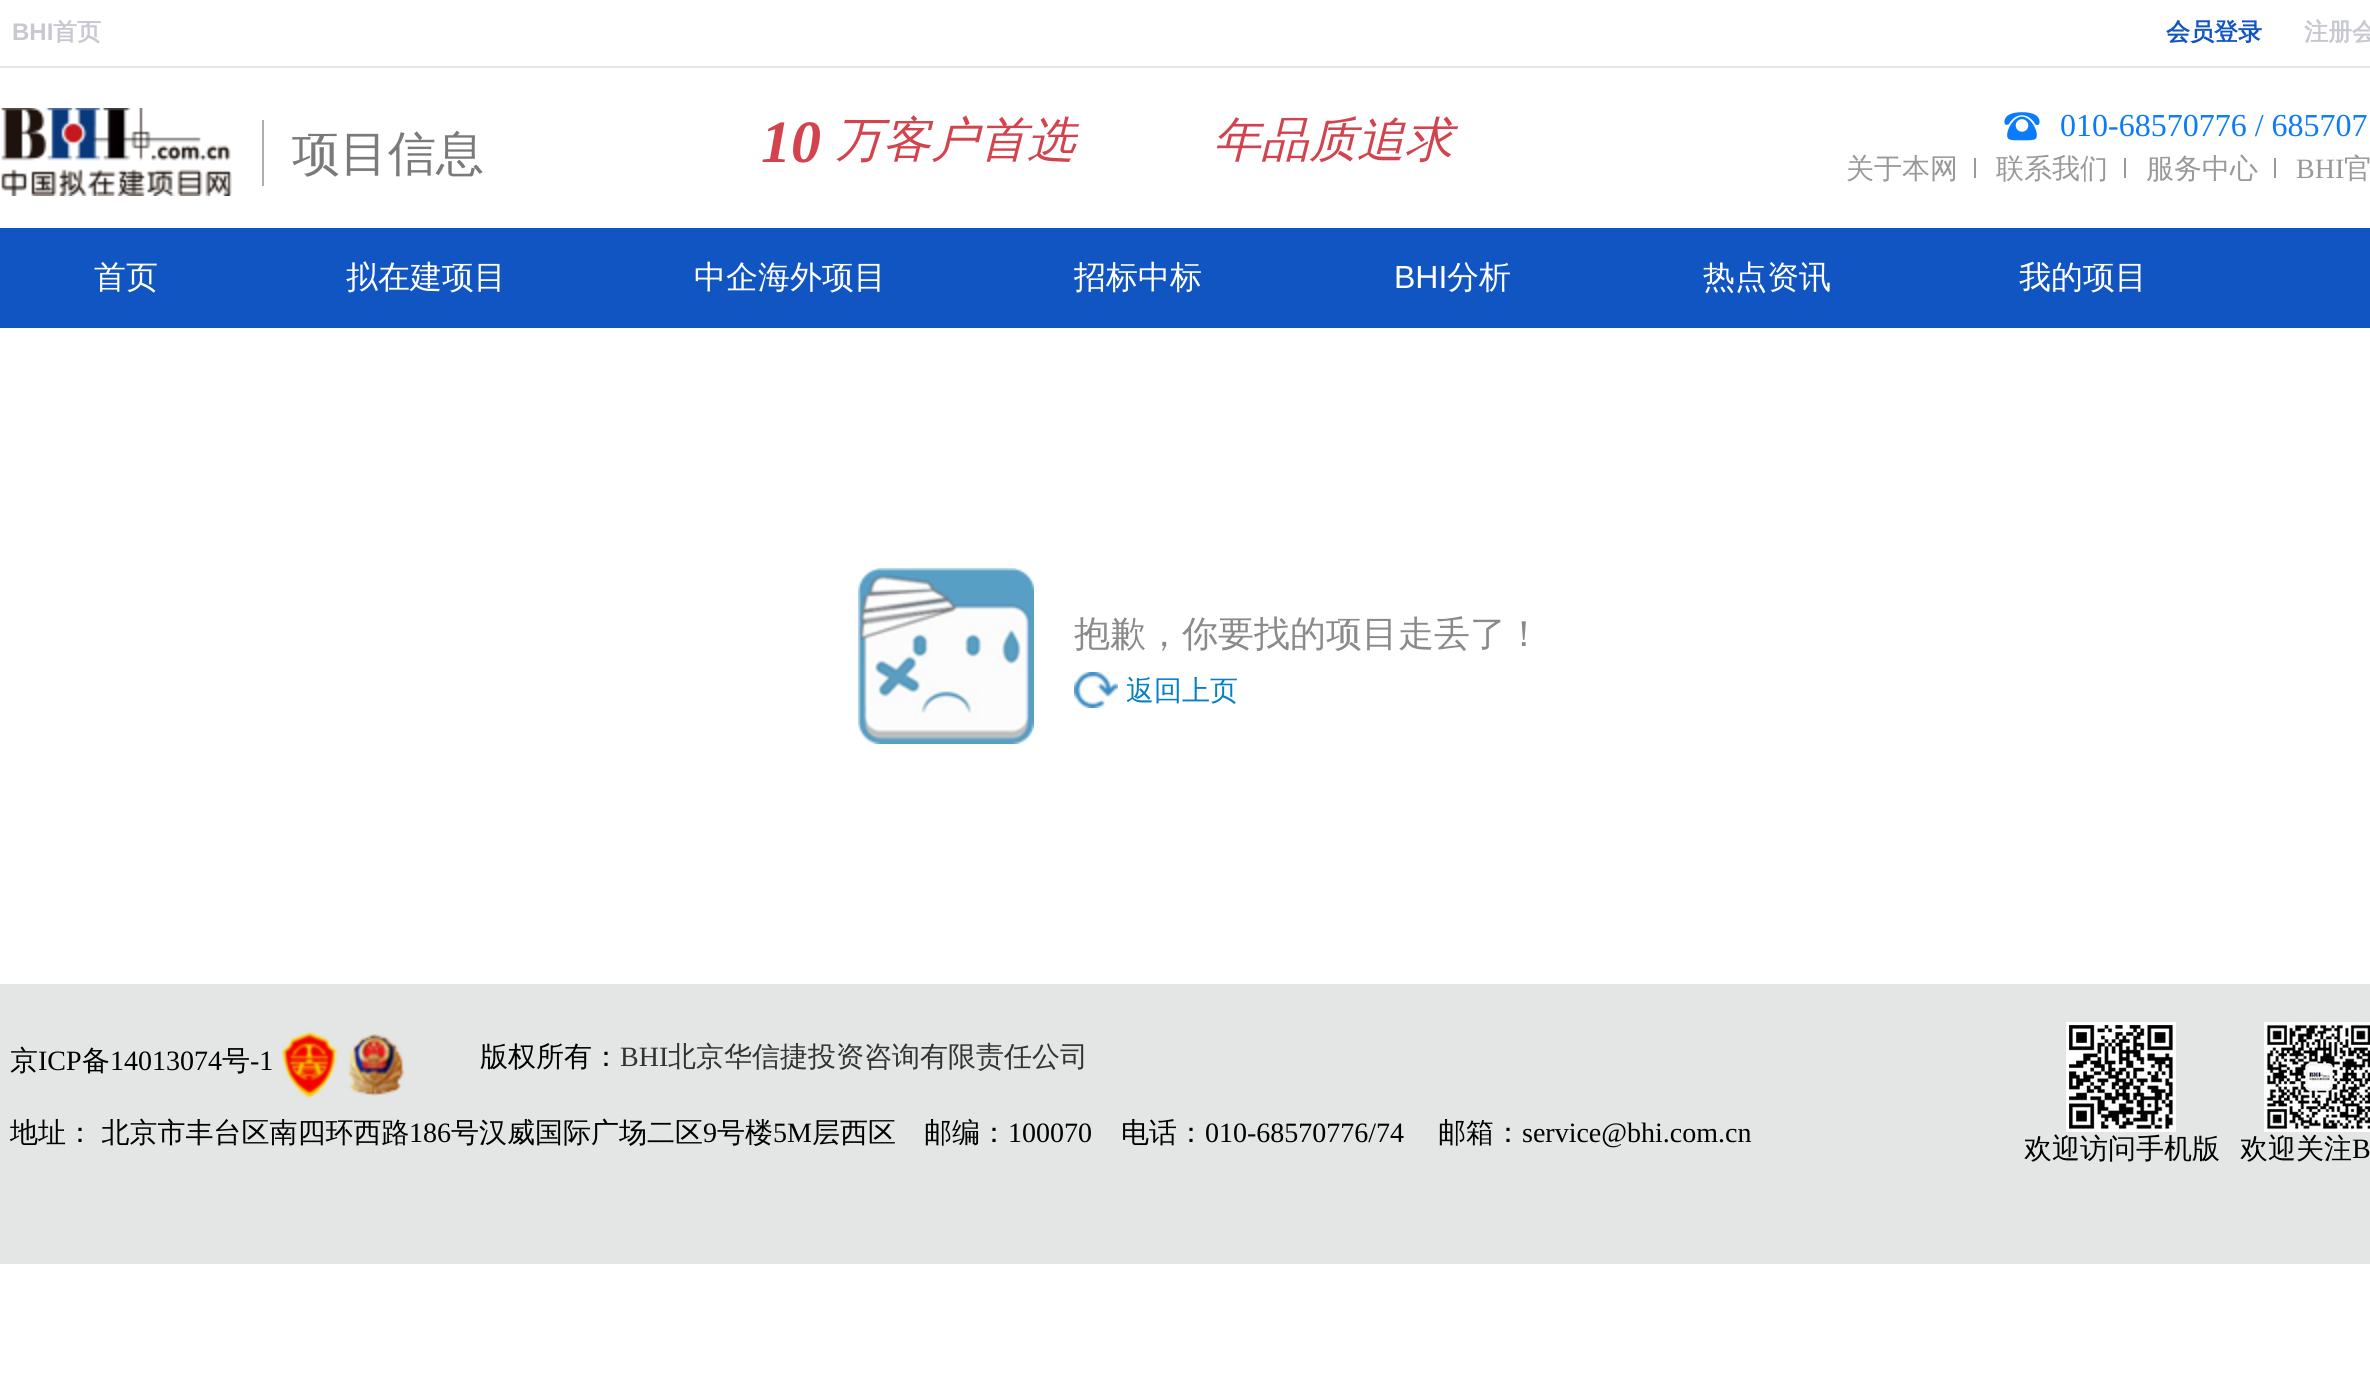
#include <cairo/cairo.h>
#include <math.h>
#include <stddef.h>


static void draw_spaced(cairo_t *cr, double x, double y, const char *s, double letter, double word) {
  cairo_move_to(cr, x, y);
  while (*s) {
    char ch[5] = {0};
    int n = 0;
    do ch[n++] = *s++; while ((*s & 0xC0) == 0x80);
    cairo_show_text(cr, ch);
    cairo_rel_move_to(cr, letter + word * (*ch == ' '), 0);
  }
}

static void draw_image(cairo_t *cr, const char *path, double x, double y, double w, double h) {
  cairo_surface_t *image = cairo_image_surface_create_from_png(path);
  cairo_save(cr);
  cairo_set_source_surface(cr, image, x, y);
  cairo_rectangle(cr, x, y, w, h);
  cairo_fill(cr);
  cairo_restore(cr);
  cairo_surface_destroy(image);
}

static void draw(cairo_t *cr) {
  cairo_set_source_rgb(cr, 1, 1, 1);
  cairo_paint(cr);
  cairo_set_source_rgb(cr, 230 / 255.0, 229 / 255.0, 229 / 255.0);
  cairo_rectangle(cr, 0, 66, 2370, 2);
  cairo_fill(cr);
  draw_image(cr, "images/1.png", 1, 108, 231, 88);
  cairo_set_source_rgb(cr, 173 / 255.0, 174 / 255.0, 174 / 255.0);
  cairo_rectangle(cr, 262, 120, 2, 66);
  cairo_fill(cr);
  draw_image(cr, "images/2.png", 2004, 112, 36, 29);
  cairo_set_source_rgb(cr, 153 / 255.0, 153 / 255.0, 153 / 255.0);
  cairo_rectangle(cr, 1974, 158, 2, 20);
  cairo_fill(cr);
  cairo_rectangle(cr, 2124, 158, 2, 20);
  cairo_fill(cr);
  cairo_rectangle(cr, 2274, 158, 2, 20);
  cairo_fill(cr);
  cairo_set_source_rgb(cr, 17 / 255.0, 85 / 255.0, 194 / 255.0);
  cairo_rectangle(cr, 0, 228, 2370, 100);
  cairo_fill(cr);
  draw_image(cr, "images/3.png", 858, 568, 176, 176);
  draw_image(cr, "images/4.png", 1074, 672, 44, 36);
  cairo_set_source_rgb(cr, 228 / 255.0, 229 / 255.0, 229 / 255.0);
  cairo_rectangle(cr, 0, 984, 2370, 280);
  cairo_fill(cr);
  draw_image(cr, "images/5.png", 282, 1030, 56, 68);
  draw_image(cr, "images/6.png", 348, 1034, 56, 62);
  draw_image(cr, "images/7.png", 2066, 1022, 110, 110);
  draw_image(cr, "images/8.png", 2264, 1022, 106, 110);
  cairo_select_font_face(cr, "Liberation Sans", CAIRO_FONT_SLANT_NORMAL, CAIRO_FONT_WEIGHT_BOLD);
  cairo_set_font_size(cr, 24);
  cairo_set_source_rgb(cr, 199 / 255.0, 200 / 255.0, 209 / 255.0);
  cairo_move_to(cr, 12, 40);
  cairo_show_text(cr, "BHI");
  cairo_select_font_face(cr, "WenQuanYi Zen Hei", CAIRO_FONT_SLANT_NORMAL, CAIRO_FONT_WEIGHT_BOLD);
  cairo_move_to(cr, 53, 40);
  cairo_show_text(cr, "首页");
  cairo_set_source_rgb(cr, 17 / 255.0, 85 / 255.0, 194 / 255.0);
  cairo_move_to(cr, 2166, 40);
  cairo_show_text(cr, "会员登录");
  cairo_set_source_rgb(cr, 199 / 255.0, 200 / 255.0, 209 / 255.0);
  cairo_move_to(cr, 2304, 40);
  cairo_show_text(cr, "注册会");
  cairo_select_font_face(cr, "WenQuanYi Zen Hei Medium", CAIRO_FONT_SLANT_NORMAL, CAIRO_FONT_WEIGHT_NORMAL);
  cairo_set_font_size(cr, 48);
  cairo_set_source_rgb(cr, 122 / 255.0, 122 / 255.0, 122 / 255.0);
  cairo_move_to(cr, 292, 170);
  cairo_show_text(cr, "项目信息");
  cairo_select_font_face(cr, "Liberation Serif", CAIRO_FONT_SLANT_ITALIC, CAIRO_FONT_WEIGHT_BOLD);
  cairo_set_font_size(cr, 60);
  cairo_set_source_rgb(cr, 211 / 255.0, 67 / 255.0, 77 / 255.0);
  cairo_move_to(cr, 761, 162);
  cairo_show_text(cr, "10");
  cairo_select_font_face(cr, "WenQuanYi Zen Hei Medium", CAIRO_FONT_SLANT_ITALIC, CAIRO_FONT_WEIGHT_NORMAL);
  cairo_set_font_size(cr, 48);
  cairo_move_to(cr, 835, 156);
  cairo_show_text(cr, "万客户首选");
  cairo_move_to(cr, 1213, 156);
  cairo_show_text(cr, "年品质追求");
  cairo_select_font_face(cr, "Liberation Serif", CAIRO_FONT_SLANT_NORMAL, CAIRO_FONT_WEIGHT_NORMAL);
  cairo_set_font_size(cr, 32);
  cairo_set_source_rgb(cr, 11 / 255.0, 122 / 255.0, 251 / 255.0);
  cairo_move_to(cr, 2060, 136);
  cairo_show_text(cr, "010-68570776 / 685707");
  cairo_select_font_face(cr, "WenQuanYi Zen Hei Medium", CAIRO_FONT_SLANT_NORMAL, CAIRO_FONT_WEIGHT_NORMAL);
  cairo_set_font_size(cr, 28);
  cairo_set_source_rgb(cr, 153 / 255.0, 153 / 255.0, 153 / 255.0);
  cairo_move_to(cr, 1846, 178);
  cairo_show_text(cr, "关于本网");
  cairo_move_to(cr, 1996, 178);
  cairo_show_text(cr, "联系我们");
  cairo_move_to(cr, 2146, 178);
  cairo_show_text(cr, "服务中心");
  cairo_select_font_face(cr, "Liberation Serif", CAIRO_FONT_SLANT_NORMAL, CAIRO_FONT_WEIGHT_NORMAL);
  cairo_move_to(cr, 2296, 178);
  cairo_show_text(cr, "BHI");
  cairo_select_font_face(cr, "WenQuanYi Zen Hei Medium", CAIRO_FONT_SLANT_NORMAL, CAIRO_FONT_WEIGHT_NORMAL);
  cairo_move_to(cr, 2344, 178);
  cairo_show_text(cr, "官");
  cairo_set_font_size(cr, 32);
  cairo_set_source_rgb(cr, 1, 1, 1);
  cairo_move_to(cr, 94, 288);
  cairo_show_text(cr, "首页");
  cairo_move_to(cr, 346, 288);
  cairo_show_text(cr, "拟在建项目");
  cairo_move_to(cr, 694, 288);
  cairo_show_text(cr, "中企海外项目");
  cairo_move_to(cr, 1074, 288);
  cairo_show_text(cr, "招标中标");
  cairo_select_font_face(cr, "Liberation Sans", CAIRO_FONT_SLANT_NORMAL, CAIRO_FONT_WEIGHT_NORMAL);
  cairo_move_to(cr, 1394, 288);
  cairo_show_text(cr, "BHI");
  cairo_select_font_face(cr, "WenQuanYi Zen Hei Medium", CAIRO_FONT_SLANT_NORMAL, CAIRO_FONT_WEIGHT_NORMAL);
  cairo_move_to(cr, 1447, 288);
  cairo_show_text(cr, "分析");
  cairo_move_to(cr, 1703, 288);
  cairo_show_text(cr, "热点资讯");
  cairo_move_to(cr, 2019, 288);
  cairo_show_text(cr, "我的项目");
  cairo_set_font_size(cr, 36);
  cairo_set_source_rgb(cr, 138 / 255.0, 138 / 255.0, 138 / 255.0);
  cairo_move_to(cr, 1074, 646);
  cairo_show_text(cr, "抱歉，你要找的项目走丢了！");
  cairo_set_font_size(cr, 28);
  cairo_set_source_rgb(cr, 5 / 255.0, 128 / 255.0, 192 / 255.0);
  cairo_move_to(cr, 1126, 700);
  cairo_show_text(cr, "返回上页");
  cairo_set_source_rgb(cr, 0, 0, 0);
  cairo_move_to(cr, 10, 1070);
  cairo_show_text(cr, "京");
  cairo_select_font_face(cr, "Liberation Serif", CAIRO_FONT_SLANT_NORMAL, CAIRO_FONT_WEIGHT_NORMAL);
  cairo_move_to(cr, 38, 1070);
  cairo_show_text(cr, "ICP");
  cairo_select_font_face(cr, "WenQuanYi Zen Hei Medium", CAIRO_FONT_SLANT_NORMAL, CAIRO_FONT_WEIGHT_NORMAL);
  cairo_move_to(cr, 82, 1070);
  cairo_show_text(cr, "备");
  cairo_select_font_face(cr, "Liberation Serif", CAIRO_FONT_SLANT_NORMAL, CAIRO_FONT_WEIGHT_NORMAL);
  cairo_move_to(cr, 110, 1070);
  cairo_show_text(cr, "14013074");
  cairo_select_font_face(cr, "WenQuanYi Zen Hei Medium", CAIRO_FONT_SLANT_NORMAL, CAIRO_FONT_WEIGHT_NORMAL);
  cairo_move_to(cr, 222, 1070);
  cairo_show_text(cr, "号");
  cairo_select_font_face(cr, "Liberation Serif", CAIRO_FONT_SLANT_NORMAL, CAIRO_FONT_WEIGHT_NORMAL);
  cairo_move_to(cr, 250, 1070);
  cairo_show_text(cr, "-1");
  cairo_select_font_face(cr, "WenQuanYi Zen Hei Medium", CAIRO_FONT_SLANT_NORMAL, CAIRO_FONT_WEIGHT_NORMAL);
  cairo_move_to(cr, 480, 1066);
  cairo_show_text(cr, "版权所有：");
  cairo_select_font_face(cr, "Liberation Serif", CAIRO_FONT_SLANT_NORMAL, CAIRO_FONT_WEIGHT_NORMAL);
  cairo_set_source_rgb(cr, 51 / 255.0, 51 / 255.0, 51 / 255.0);
  cairo_move_to(cr, 620, 1066);
  cairo_show_text(cr, "BHI");
  cairo_select_font_face(cr, "WenQuanYi Zen Hei Medium", CAIRO_FONT_SLANT_NORMAL, CAIRO_FONT_WEIGHT_NORMAL);
  cairo_move_to(cr, 668, 1066);
  cairo_show_text(cr, "北京华信捷投资咨询有限责任公司");
  cairo_set_source_rgb(cr, 0, 0, 0);
  draw_spaced(cr, 10, 1142, "地址： 北京市丰台区南四环西路", 0, -1);
  cairo_select_font_face(cr, "Liberation Serif", CAIRO_FONT_SLANT_NORMAL, CAIRO_FONT_WEIGHT_NORMAL);
  cairo_move_to(cr, 409, 1142);
  cairo_show_text(cr, "186");
  cairo_select_font_face(cr, "WenQuanYi Zen Hei Medium", CAIRO_FONT_SLANT_NORMAL, CAIRO_FONT_WEIGHT_NORMAL);
  cairo_move_to(cr, 451, 1142);
  cairo_show_text(cr, "号汉威国际广场二区");
  cairo_select_font_face(cr, "Liberation Serif", CAIRO_FONT_SLANT_NORMAL, CAIRO_FONT_WEIGHT_NORMAL);
  cairo_move_to(cr, 703, 1142);
  cairo_show_text(cr, "9");
  cairo_select_font_face(cr, "WenQuanYi Zen Hei Medium", CAIRO_FONT_SLANT_NORMAL, CAIRO_FONT_WEIGHT_NORMAL);
  cairo_move_to(cr, 717, 1142);
  cairo_show_text(cr, "号楼");
  cairo_select_font_face(cr, "Liberation Serif", CAIRO_FONT_SLANT_NORMAL, CAIRO_FONT_WEIGHT_NORMAL);
  cairo_move_to(cr, 773, 1142);
  cairo_show_text(cr, "5M");
  cairo_select_font_face(cr, "WenQuanYi Zen Hei Medium", CAIRO_FONT_SLANT_NORMAL, CAIRO_FONT_WEIGHT_NORMAL);
  cairo_move_to(cr, 812, 1142);
  cairo_show_text(cr, "层西区");
  cairo_move_to(cr, 924, 1142);
  cairo_show_text(cr, "邮编：");
  cairo_select_font_face(cr, "Liberation Serif", CAIRO_FONT_SLANT_NORMAL, CAIRO_FONT_WEIGHT_NORMAL);
  cairo_move_to(cr, 1008, 1142);
  cairo_show_text(cr, "100070");
  cairo_select_font_face(cr, "WenQuanYi Zen Hei Medium", CAIRO_FONT_SLANT_NORMAL, CAIRO_FONT_WEIGHT_NORMAL);
  cairo_move_to(cr, 1121, 1142);
  cairo_show_text(cr, "电话：");
  cairo_select_font_face(cr, "Liberation Serif", CAIRO_FONT_SLANT_NORMAL, CAIRO_FONT_WEIGHT_NORMAL);
  cairo_move_to(cr, 1205, 1142);
  cairo_show_text(cr, "010-68570776/74");
  cairo_select_font_face(cr, "WenQuanYi Zen Hei Medium", CAIRO_FONT_SLANT_NORMAL, CAIRO_FONT_WEIGHT_NORMAL);
  cairo_move_to(cr, 1438, 1142);
  cairo_show_text(cr, "邮箱：");
  cairo_select_font_face(cr, "Liberation Serif", CAIRO_FONT_SLANT_NORMAL, CAIRO_FONT_WEIGHT_NORMAL);
  cairo_move_to(cr, 1522, 1142);
  cairo_show_text(cr, "service@bhi.com.cn");
  cairo_select_font_face(cr, "WenQuanYi Zen Hei Medium", CAIRO_FONT_SLANT_NORMAL, CAIRO_FONT_WEIGHT_NORMAL);
  cairo_move_to(cr, 2024, 1158);
  cairo_show_text(cr, "欢迎访问手机版");
  cairo_move_to(cr, 2240, 1158);
  cairo_show_text(cr, "欢迎关注");
  cairo_select_font_face(cr, "Liberation Serif", CAIRO_FONT_SLANT_NORMAL, CAIRO_FONT_WEIGHT_NORMAL);
  cairo_move_to(cr, 2352, 1158);
  cairo_show_text(cr, "B");
}

int main(void) {
  cairo_surface_t *surface = cairo_image_surface_create(CAIRO_FORMAT_RGB24, 2370, 1386);
  cairo_t *cr = cairo_create(surface);
  cairo_font_options_t *options = cairo_font_options_create();
  cairo_font_options_set_hint_metrics(options, CAIRO_HINT_METRICS_OFF);
  cairo_font_options_set_hint_style(options, CAIRO_HINT_STYLE_NONE);
  cairo_set_font_options(cr, options);
  cairo_set_miter_limit(cr, 4);
  draw(cr);
  cairo_surface_write_to_png(surface, "out.png");
  cairo_font_options_destroy(options);
  cairo_destroy(cr);
  cairo_surface_destroy(surface);
  return 0;
}
